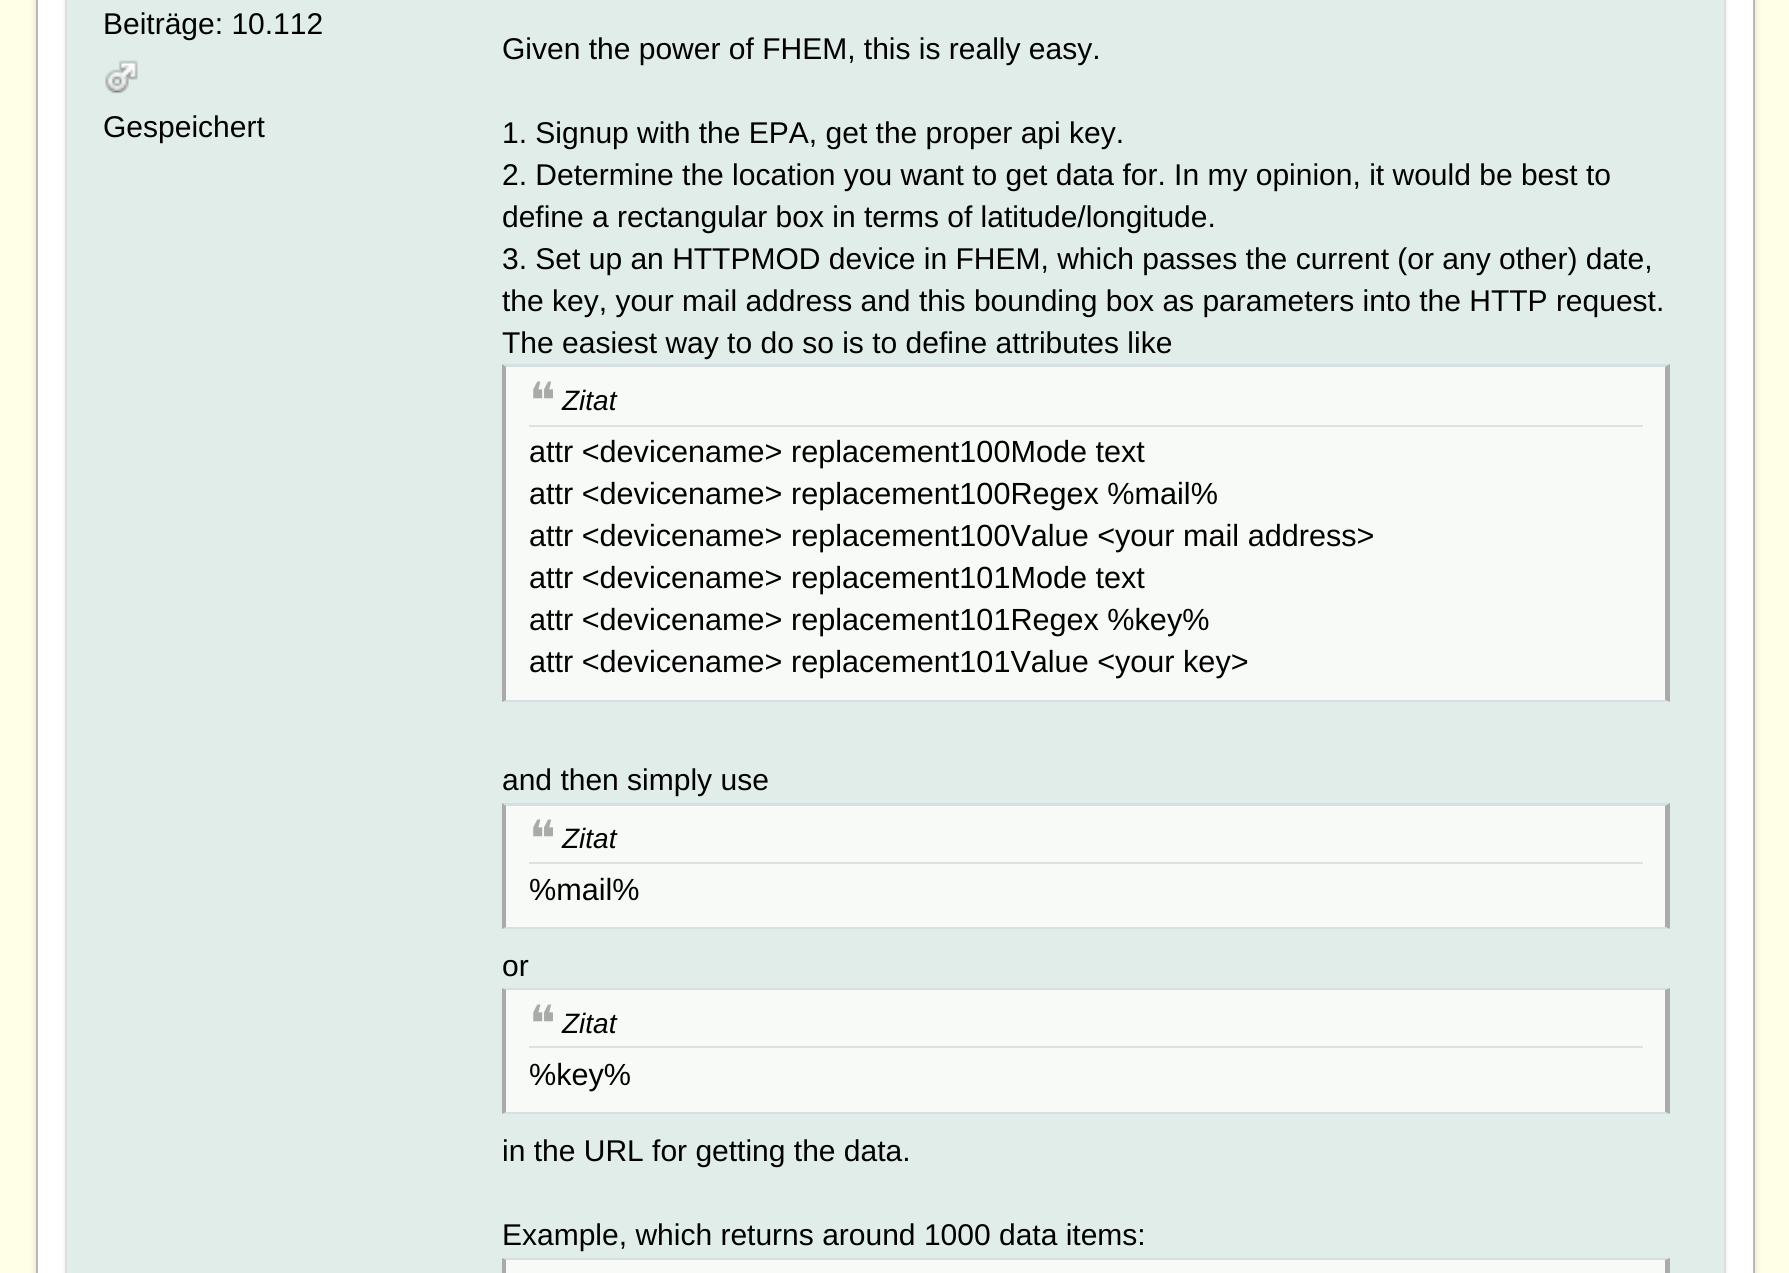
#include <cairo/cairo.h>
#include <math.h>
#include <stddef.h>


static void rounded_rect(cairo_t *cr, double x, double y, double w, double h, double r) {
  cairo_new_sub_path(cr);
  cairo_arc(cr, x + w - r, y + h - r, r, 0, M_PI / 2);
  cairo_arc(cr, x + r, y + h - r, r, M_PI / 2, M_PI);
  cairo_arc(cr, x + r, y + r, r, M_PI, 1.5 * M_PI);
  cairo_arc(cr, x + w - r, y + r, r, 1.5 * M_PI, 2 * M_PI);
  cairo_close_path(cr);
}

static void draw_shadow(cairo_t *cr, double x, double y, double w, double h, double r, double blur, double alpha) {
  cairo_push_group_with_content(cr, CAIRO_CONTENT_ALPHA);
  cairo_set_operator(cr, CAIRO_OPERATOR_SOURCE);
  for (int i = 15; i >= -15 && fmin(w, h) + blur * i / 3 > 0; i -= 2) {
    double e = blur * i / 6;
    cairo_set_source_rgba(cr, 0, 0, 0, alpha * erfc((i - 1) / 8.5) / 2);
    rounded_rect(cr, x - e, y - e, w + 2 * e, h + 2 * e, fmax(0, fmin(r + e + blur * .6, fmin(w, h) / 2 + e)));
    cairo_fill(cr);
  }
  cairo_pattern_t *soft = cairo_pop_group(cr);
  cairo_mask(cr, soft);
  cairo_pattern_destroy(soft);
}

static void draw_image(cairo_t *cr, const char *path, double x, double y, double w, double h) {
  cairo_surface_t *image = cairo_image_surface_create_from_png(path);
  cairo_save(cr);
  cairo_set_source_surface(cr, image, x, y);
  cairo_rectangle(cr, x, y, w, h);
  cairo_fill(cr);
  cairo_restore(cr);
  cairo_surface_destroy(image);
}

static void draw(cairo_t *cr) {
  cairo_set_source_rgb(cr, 1, 1, 231 / 255.0);
  cairo_paint(cr);
  cairo_set_source_rgb(cr, 0, 0, 0);
  draw_shadow(cr, 36, -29, 1719, 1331, 18, 3.5, 0.14);
  cairo_set_source_rgb(cr, 1, 1, 1);
  cairo_rectangle(cr, 37, -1, 1717, 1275);
  cairo_fill_preserve(cr);
  cairo_set_source_rgb(cr, 184 / 255.0, 184 / 255.0, 184 / 255.0);
  cairo_stroke(cr);
  cairo_set_source_rgb(cr, 0, 0, 0);
  draw_shadow(cr, 65, -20, 1661, 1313, 14, 2, 0.1);
  cairo_set_source_rgb(cr, 224 / 255.0, 237 / 255.0, 233 / 255.0);
  cairo_rectangle(cr, 66, -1, 1659, 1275);
  cairo_fill_preserve(cr);
  cairo_set_source_rgb(cr, 221 / 255.0, 221 / 255.0, 221 / 255.0);
  cairo_stroke(cr);
  draw_image(cr, "images/1.png", 105, 60, 33, 34);
  cairo_set_source_rgb(cr, 247 / 255.0, 250 / 255.0, 247 / 255.0);
  cairo_rectangle(cr, 506, 367, 1159, 333);
  cairo_fill(cr);
  cairo_set_source_rgb(cr, 214 / 255.0, 223 / 255.0, 226 / 255.0);
  cairo_new_path(cr);
  cairo_move_to(cr, 502, 364);
  cairo_line_to(cr, 1670, 364);
  cairo_line_to(cr, 1665, 367);
  cairo_line_to(cr, 506, 367);
  cairo_close_path(cr);
  cairo_fill(cr);
  cairo_set_source_rgb(cr, 170 / 255.0, 170 / 255.0, 170 / 255.0);
  cairo_new_path(cr);
  cairo_move_to(cr, 1670, 364);
  cairo_line_to(cr, 1670, 702);
  cairo_line_to(cr, 1665, 700);
  cairo_line_to(cr, 1665, 367);
  cairo_close_path(cr);
  cairo_fill(cr);
  cairo_set_source_rgb(cr, 214 / 255.0, 223 / 255.0, 226 / 255.0);
  cairo_new_path(cr);
  cairo_move_to(cr, 1670, 702);
  cairo_line_to(cr, 502, 702);
  cairo_line_to(cr, 506, 700);
  cairo_line_to(cr, 1665, 700);
  cairo_close_path(cr);
  cairo_fill(cr);
  cairo_set_source_rgb(cr, 170 / 255.0, 170 / 255.0, 170 / 255.0);
  cairo_new_path(cr);
  cairo_move_to(cr, 502, 702);
  cairo_line_to(cr, 502, 364);
  cairo_line_to(cr, 506, 367);
  cairo_line_to(cr, 506, 700);
  cairo_close_path(cr);
  cairo_fill(cr);
  cairo_set_source_rgb(cr, 222 / 255.0, 225 / 255.0, 222 / 255.0);
  cairo_rectangle(cr, 529, 425, 1114, 2);
  cairo_fill(cr);
  cairo_set_source_rgb(cr, 247 / 255.0, 250 / 255.0, 247 / 255.0);
  cairo_rectangle(cr, 506, 806, 1159, 121);
  cairo_fill(cr);
  cairo_set_source_rgb(cr, 214 / 255.0, 223 / 255.0, 226 / 255.0);
  cairo_new_path(cr);
  cairo_move_to(cr, 502, 803);
  cairo_line_to(cr, 1670, 803);
  cairo_line_to(cr, 1665, 806);
  cairo_line_to(cr, 506, 806);
  cairo_close_path(cr);
  cairo_fill(cr);
  cairo_set_source_rgb(cr, 170 / 255.0, 170 / 255.0, 170 / 255.0);
  cairo_new_path(cr);
  cairo_move_to(cr, 1670, 803);
  cairo_line_to(cr, 1670, 929);
  cairo_line_to(cr, 1665, 927);
  cairo_line_to(cr, 1665, 806);
  cairo_close_path(cr);
  cairo_fill(cr);
  cairo_set_source_rgb(cr, 214 / 255.0, 223 / 255.0, 226 / 255.0);
  cairo_new_path(cr);
  cairo_move_to(cr, 1670, 929);
  cairo_line_to(cr, 502, 929);
  cairo_line_to(cr, 506, 927);
  cairo_line_to(cr, 1665, 927);
  cairo_close_path(cr);
  cairo_fill(cr);
  cairo_set_source_rgb(cr, 170 / 255.0, 170 / 255.0, 170 / 255.0);
  cairo_new_path(cr);
  cairo_move_to(cr, 502, 929);
  cairo_line_to(cr, 502, 803);
  cairo_line_to(cr, 506, 806);
  cairo_line_to(cr, 506, 927);
  cairo_close_path(cr);
  cairo_fill(cr);
  cairo_set_source_rgb(cr, 222 / 255.0, 225 / 255.0, 222 / 255.0);
  cairo_rectangle(cr, 529, 862, 1114, 2);
  cairo_fill(cr);
  cairo_set_source_rgb(cr, 247 / 255.0, 250 / 255.0, 247 / 255.0);
  cairo_rectangle(cr, 506, 990, 1159, 122);
  cairo_fill(cr);
  cairo_set_source_rgb(cr, 214 / 255.0, 223 / 255.0, 226 / 255.0);
  cairo_new_path(cr);
  cairo_move_to(cr, 502, 988);
  cairo_line_to(cr, 1670, 988);
  cairo_line_to(cr, 1665, 990);
  cairo_line_to(cr, 506, 990);
  cairo_close_path(cr);
  cairo_fill(cr);
  cairo_set_source_rgb(cr, 170 / 255.0, 170 / 255.0, 170 / 255.0);
  cairo_new_path(cr);
  cairo_move_to(cr, 1670, 988);
  cairo_line_to(cr, 1670, 1114);
  cairo_line_to(cr, 1665, 1112);
  cairo_line_to(cr, 1665, 990);
  cairo_close_path(cr);
  cairo_fill(cr);
  cairo_set_source_rgb(cr, 214 / 255.0, 223 / 255.0, 226 / 255.0);
  cairo_new_path(cr);
  cairo_move_to(cr, 1670, 1114);
  cairo_line_to(cr, 502, 1114);
  cairo_line_to(cr, 506, 1112);
  cairo_line_to(cr, 1665, 1112);
  cairo_close_path(cr);
  cairo_fill(cr);
  cairo_set_source_rgb(cr, 170 / 255.0, 170 / 255.0, 170 / 255.0);
  cairo_new_path(cr);
  cairo_move_to(cr, 502, 1114);
  cairo_line_to(cr, 502, 988);
  cairo_line_to(cr, 506, 990);
  cairo_line_to(cr, 506, 1112);
  cairo_close_path(cr);
  cairo_fill(cr);
  cairo_set_source_rgb(cr, 222 / 255.0, 225 / 255.0, 222 / 255.0);
  cairo_rectangle(cr, 529, 1046, 1114, 2);
  cairo_fill(cr);
  cairo_set_source_rgb(cr, 247 / 255.0, 250 / 255.0, 247 / 255.0);
  cairo_rectangle(cr, 506, 1260, 1159, 13);
  cairo_fill(cr);
  cairo_set_source_rgb(cr, 214 / 255.0, 223 / 255.0, 226 / 255.0);
  cairo_new_path(cr);
  cairo_move_to(cr, 502, 1258);
  cairo_line_to(cr, 1670, 1258);
  cairo_line_to(cr, 1665, 1260);
  cairo_line_to(cr, 506, 1260);
  cairo_close_path(cr);
  cairo_fill(cr);
  cairo_set_source_rgb(cr, 170 / 255.0, 170 / 255.0, 170 / 255.0);
  cairo_new_path(cr);
  cairo_move_to(cr, 1670, 1258);
  cairo_line_to(cr, 1670, 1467);
  cairo_line_to(cr, 1665, 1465);
  cairo_line_to(cr, 1665, 1260);
  cairo_close_path(cr);
  cairo_fill(cr);
  cairo_new_path(cr);
  cairo_move_to(cr, 502, 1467);
  cairo_line_to(cr, 502, 1258);
  cairo_line_to(cr, 506, 1260);
  cairo_line_to(cr, 506, 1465);
  cairo_close_path(cr);
  cairo_fill(cr);
  cairo_select_font_face(cr, "Liberation Sans", CAIRO_FONT_SLANT_NORMAL, CAIRO_FONT_WEIGHT_NORMAL);
  cairo_set_font_size(cr, 30);
  cairo_set_source_rgb(cr, 0, 0, 0);
  cairo_move_to(cr, 103, 34);
  cairo_show_text(cr, "Beiträge: 10.112");
  cairo_move_to(cr, 103, 137);
  cairo_show_text(cr, "Gespeichert");
  cairo_move_to(cr, 502, 59);
  cairo_show_text(cr, "Given the power of FHEM, this is really easy.");
  cairo_move_to(cr, 502, 143);
  cairo_show_text(cr, "1. Signup with the EPA, get the proper api key.");
  cairo_move_to(cr, 502, 185);
  cairo_show_text(cr, "2. Determine the location you want to get data for. In my opinion, it would be best to");
  cairo_move_to(cr, 502, 227);
  cairo_show_text(cr, "define a rectangular box in terms of latitude/longitude.");
  cairo_move_to(cr, 502, 269);
  cairo_show_text(cr, "3. Set up an HTTPMOD device in FHEM, which passes the current (or any other) date,");
  cairo_move_to(cr, 502, 311);
  cairo_show_text(cr, "the key, your mail address and this bounding box as parameters into the HTTP request.");
  cairo_move_to(cr, 502, 353);
  cairo_show_text(cr, "The easiest way to do so is to define attributes like");
  cairo_select_font_face(cr, "DejaVu Sans", CAIRO_FONT_SLANT_NORMAL, CAIRO_FONT_WEIGHT_NORMAL);
  cairo_set_font_size(cr, 50);
  cairo_set_source_rgb(cr, 170 / 255.0, 170 / 255.0, 170 / 255.0);
  cairo_move_to(cr, 529, 418);
  cairo_show_text(cr, "❝");
  cairo_select_font_face(cr, "Liberation Sans", CAIRO_FONT_SLANT_ITALIC, CAIRO_FONT_WEIGHT_NORMAL);
  cairo_set_font_size(cr, 28);
  cairo_set_source_rgb(cr, 0, 0, 0);
  cairo_move_to(cr, 562, 410);
  cairo_show_text(cr, "Zitat");
  cairo_select_font_face(cr, "Liberation Sans", CAIRO_FONT_SLANT_NORMAL, CAIRO_FONT_WEIGHT_NORMAL);
  cairo_set_font_size(cr, 30.6);
  cairo_move_to(cr, 529, 462);
  cairo_show_text(cr, "attr <devicename> replacement100Mode text");
  cairo_move_to(cr, 529, 504);
  cairo_show_text(cr, "attr <devicename> replacement100Regex %mail%");
  cairo_move_to(cr, 529, 546);
  cairo_show_text(cr, "attr <devicename> replacement100Value <your mail address>");
  cairo_move_to(cr, 529, 588);
  cairo_show_text(cr, "attr <devicename> replacement101Mode text");
  cairo_move_to(cr, 529, 630);
  cairo_show_text(cr, "attr <devicename> replacement101Regex %key%");
  cairo_move_to(cr, 529, 672);
  cairo_show_text(cr, "attr <devicename> replacement101Value <your key>");
  cairo_set_font_size(cr, 30);
  cairo_move_to(cr, 502, 790);
  cairo_show_text(cr, "and then simply use");
  cairo_select_font_face(cr, "DejaVu Sans", CAIRO_FONT_SLANT_NORMAL, CAIRO_FONT_WEIGHT_NORMAL);
  cairo_set_font_size(cr, 50);
  cairo_set_source_rgb(cr, 170 / 255.0, 170 / 255.0, 170 / 255.0);
  cairo_move_to(cr, 529, 856);
  cairo_show_text(cr, "❝");
  cairo_select_font_face(cr, "Liberation Sans", CAIRO_FONT_SLANT_ITALIC, CAIRO_FONT_WEIGHT_NORMAL);
  cairo_set_font_size(cr, 28);
  cairo_set_source_rgb(cr, 0, 0, 0);
  cairo_move_to(cr, 562, 848);
  cairo_show_text(cr, "Zitat");
  cairo_select_font_face(cr, "Liberation Sans", CAIRO_FONT_SLANT_NORMAL, CAIRO_FONT_WEIGHT_NORMAL);
  cairo_set_font_size(cr, 30.6);
  cairo_move_to(cr, 529, 900);
  cairo_show_text(cr, "%mail%");
  cairo_set_font_size(cr, 30);
  cairo_move_to(cr, 502, 976);
  cairo_show_text(cr, "or");
  cairo_select_font_face(cr, "DejaVu Sans", CAIRO_FONT_SLANT_NORMAL, CAIRO_FONT_WEIGHT_NORMAL);
  cairo_set_font_size(cr, 50);
  cairo_set_source_rgb(cr, 170 / 255.0, 170 / 255.0, 170 / 255.0);
  cairo_move_to(cr, 529, 1041);
  cairo_show_text(cr, "❝");
  cairo_select_font_face(cr, "Liberation Sans", CAIRO_FONT_SLANT_ITALIC, CAIRO_FONT_WEIGHT_NORMAL);
  cairo_set_font_size(cr, 28);
  cairo_set_source_rgb(cr, 0, 0, 0);
  cairo_move_to(cr, 562, 1033);
  cairo_show_text(cr, "Zitat");
  cairo_select_font_face(cr, "Liberation Sans", CAIRO_FONT_SLANT_NORMAL, CAIRO_FONT_WEIGHT_NORMAL);
  cairo_set_font_size(cr, 30.6);
  cairo_move_to(cr, 529, 1085);
  cairo_show_text(cr, "%key%");
  cairo_set_font_size(cr, 30);
  cairo_move_to(cr, 502, 1161);
  cairo_show_text(cr, "in the URL for getting the data.");
  cairo_move_to(cr, 502, 1245);
  cairo_show_text(cr, "Example, which returns around 1000 data items:");
}

int main(void) {
  cairo_surface_t *surface = cairo_image_surface_create(CAIRO_FORMAT_RGB24, 1789, 1273);
  cairo_t *cr = cairo_create(surface);
  cairo_font_options_t *options = cairo_font_options_create();
  cairo_font_options_set_hint_metrics(options, CAIRO_HINT_METRICS_OFF);
  cairo_font_options_set_hint_style(options, CAIRO_HINT_STYLE_NONE);
  cairo_set_font_options(cr, options);
  cairo_set_miter_limit(cr, 4);
  draw(cr);
  cairo_surface_write_to_png(surface, "out.png");
  cairo_font_options_destroy(options);
  cairo_destroy(cr);
  cairo_surface_destroy(surface);
  return 0;
}
